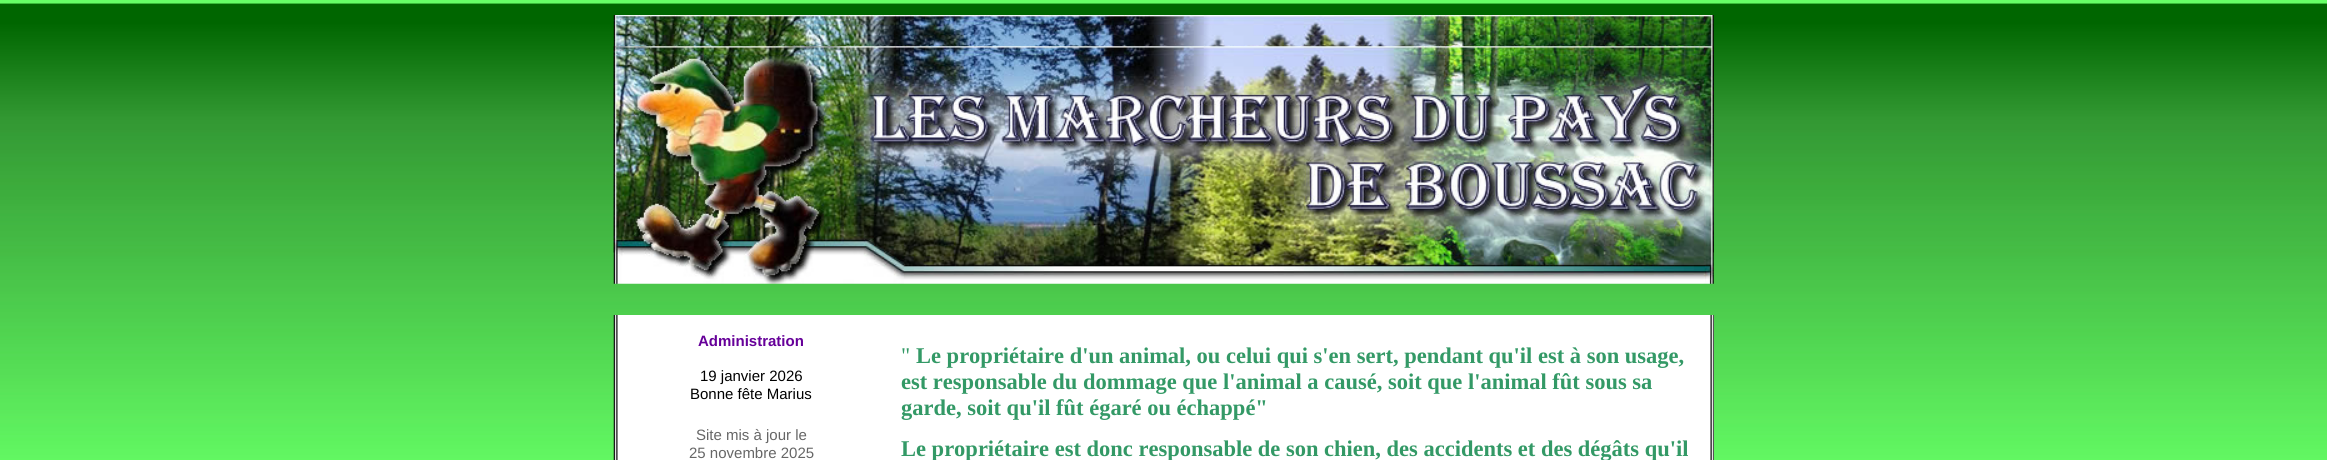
#include <cairo/cairo.h>
#include <math.h>
#include <stddef.h>


static void draw_image(cairo_t *cr, const char *path, double x, double y, double w, double h) {
  cairo_surface_t *image = cairo_image_surface_create_from_png(path);
  cairo_save(cr);
  cairo_set_source_surface(cr, image, x, y);
  cairo_rectangle(cr, x, y, w, h);
  cairo_fill(cr);
  cairo_restore(cr);
  cairo_surface_destroy(image);
}

static void draw(cairo_t *cr) {
  cairo_set_source_rgb(cr, 102 / 255.0, 1, 102 / 255.0);
  cairo_paint(cr);
  draw_image(cr, "images/1.png", 0, 3, 2327, 1);
  draw_image(cr, "images/2.png", 0, 3, 2327, 457);
  draw_image(cr, "images/3.png", 613, 15, 1101, 238);
  draw_image(cr, "images/4.png", 613, 46, 1101, 238);
  cairo_set_source_rgb(cr, 1, 1, 1);
  cairo_rectangle(cr, 618, 315, 1096, 145);
  cairo_fill(cr);
  draw_image(cr, "images/5.png", 613, 315, 5, 145);
  draw_image(cr, "images/6.png", 1710, 315, 4, 145);
  cairo_select_font_face(cr, "Liberation Sans", CAIRO_FONT_SLANT_NORMAL, CAIRO_FONT_WEIGHT_BOLD);
  cairo_set_font_size(cr, 15);
  cairo_set_source_rgb(cr, 102 / 255.0, 0, 153 / 255.0);
  cairo_move_to(cr, 698, 346);
  cairo_show_text(cr, "Administration");
  cairo_select_font_face(cr, "Liberation Sans", CAIRO_FONT_SLANT_NORMAL, CAIRO_FONT_WEIGHT_NORMAL);
  cairo_set_source_rgb(cr, 0, 0, 0);
  cairo_move_to(cr, 700, 381);
  cairo_show_text(cr, "19 janvier 2026");
  cairo_move_to(cr, 690, 399);
  cairo_show_text(cr, "Bonne fête Marius");
  cairo_set_source_rgb(cr, 102 / 255.0, 102 / 255.0, 102 / 255.0);
  cairo_move_to(cr, 696, 440);
  cairo_show_text(cr, "Site mis à jour le");
  cairo_move_to(cr, 689, 458);
  cairo_show_text(cr, "25 novembre 2025");
  cairo_select_font_face(cr, "Liberation Serif", CAIRO_FONT_SLANT_NORMAL, CAIRO_FONT_WEIGHT_NORMAL);
  cairo_set_font_size(cr, 22.5);
  cairo_set_source_rgb(cr, 51 / 255.0, 153 / 255.0, 102 / 255.0);
  cairo_move_to(cr, 901, 363);
  cairo_show_text(cr, "\"");
  cairo_select_font_face(cr, "Liberation Serif", CAIRO_FONT_SLANT_NORMAL, CAIRO_FONT_WEIGHT_BOLD);
  cairo_move_to(cr, 916, 363);
  cairo_show_text(cr, "Le propriétaire d'un animal, ou celui qui s'en sert, pendant qu'il est à son usage,");
  cairo_move_to(cr, 901, 389);
  cairo_show_text(cr, "est responsable du dommage que l'animal a causé, soit que l'animal fût sous sa");
  cairo_move_to(cr, 901, 415);
  cairo_show_text(cr, "garde, soit qu'il fût égaré ou échappé\"");
  cairo_move_to(cr, 901, 456);
  cairo_show_text(cr, "Le propriétaire est donc responsable de son chien, des accidents et des dégâts qu'il");
}

int main(void) {
  cairo_surface_t *surface = cairo_image_surface_create(CAIRO_FORMAT_RGB24, 2327, 460);
  cairo_t *cr = cairo_create(surface);
  cairo_font_options_t *options = cairo_font_options_create();
  cairo_font_options_set_hint_metrics(options, CAIRO_HINT_METRICS_OFF);
  cairo_font_options_set_hint_style(options, CAIRO_HINT_STYLE_NONE);
  cairo_set_font_options(cr, options);
  cairo_set_miter_limit(cr, 4);
  draw(cr);
  cairo_surface_write_to_png(surface, "out.png");
  cairo_font_options_destroy(options);
  cairo_destroy(cr);
  cairo_surface_destroy(surface);
  return 0;
}
